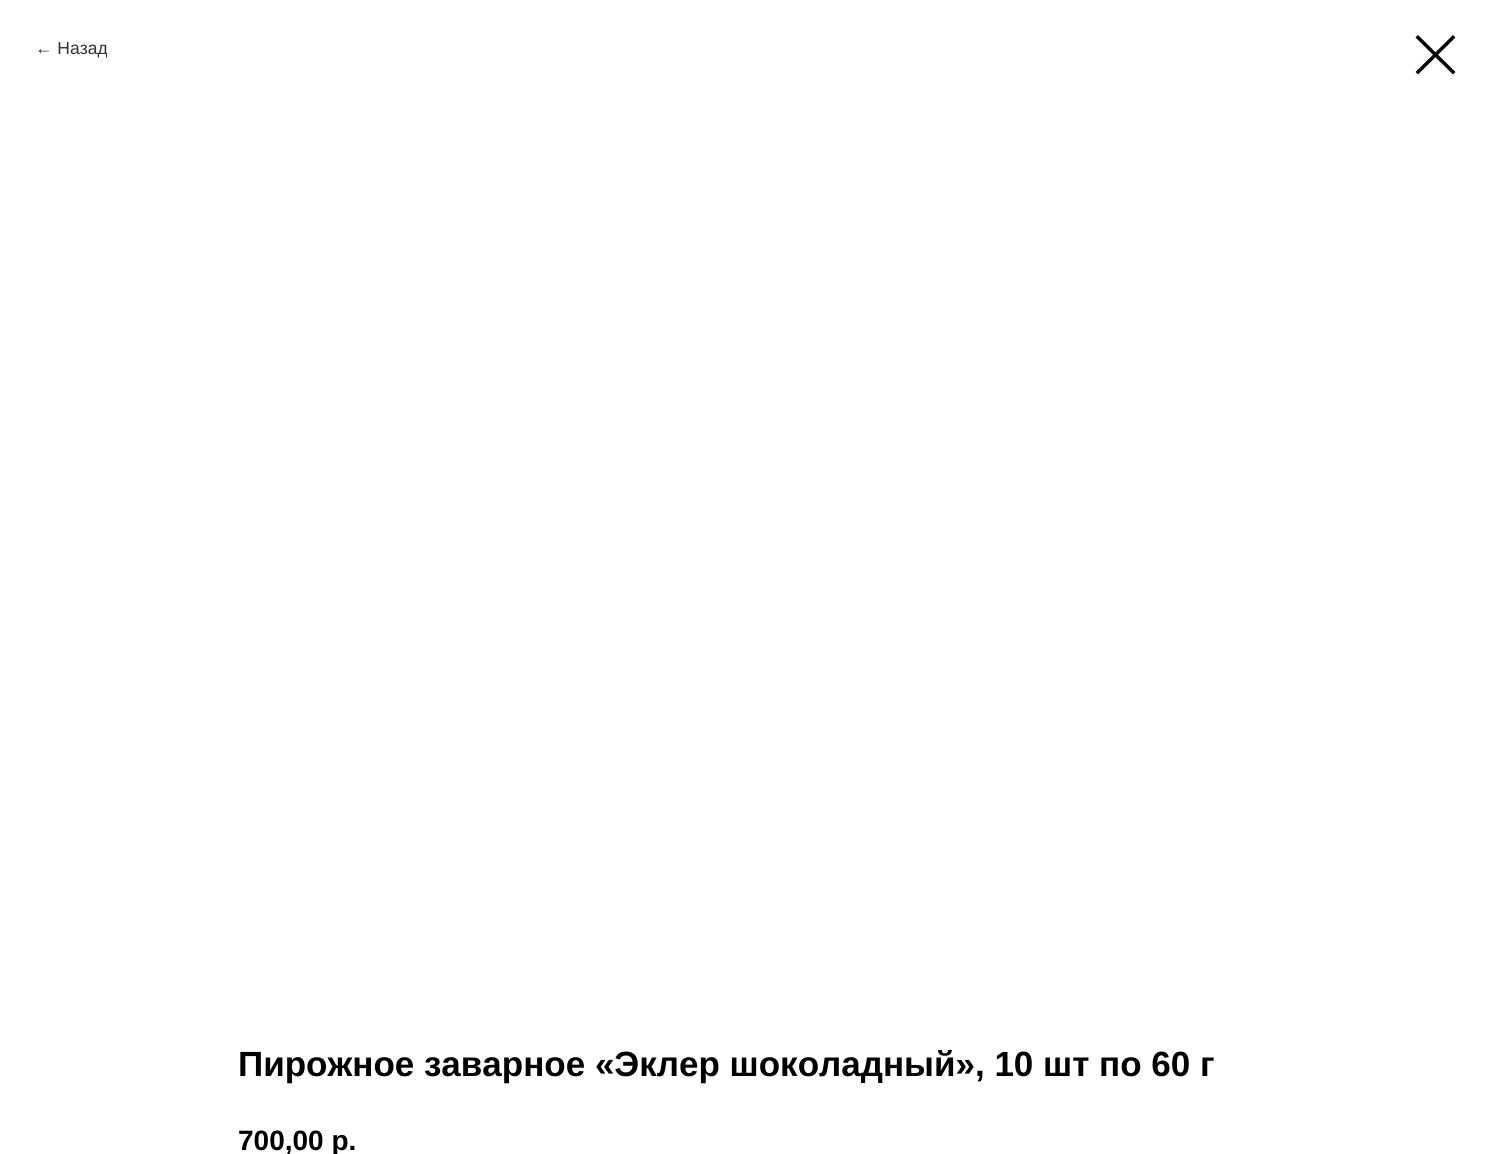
#include <cairo/cairo.h>
#include <math.h>
#include <stddef.h>


static void draw(cairo_t *cr) {
  cairo_set_source_rgb(cr, 1, 1, 1);
  cairo_paint(cr);
  cairo_set_source_rgb(cr, 0, 0, 0);
  cairo_set_fill_rule(cr, CAIRO_FILL_RULE_EVEN_ODD);
  cairo_new_path(cr);
  cairo_move_to(cr, 1415.5, 37.5);
  cairo_line_to(cr, 1418, 35);
  cairo_line_to(cr, 1455.5, 72);
  cairo_line_to(cr, 1453, 74.5);
  cairo_close_path(cr);
  cairo_fill(cr);
  cairo_new_path(cr);
  cairo_move_to(cr, 1453, 35);
  cairo_line_to(cr, 1455.5, 37.5);
  cairo_line_to(cr, 1418, 74.5);
  cairo_line_to(cr, 1415.5, 72);
  cairo_close_path(cr);
  cairo_fill(cr);
  cairo_select_font_face(cr, "Liberation Sans", CAIRO_FONT_SLANT_NORMAL, CAIRO_FONT_WEIGHT_NORMAL);
  cairo_set_font_size(cr, 17.5);
  cairo_set_source_rgb(cr, 51 / 255.0, 51 / 255.0, 51 / 255.0);
  cairo_move_to(cr, 35, 54);
  cairo_show_text(cr, "← Назад");
  cairo_select_font_face(cr, "Liberation Sans", CAIRO_FONT_SLANT_NORMAL, CAIRO_FONT_WEIGHT_BOLD);
  cairo_set_font_size(cr, 35);
  cairo_set_source_rgb(cr, 0, 0, 0);
  cairo_move_to(cr, 238, 1076);
  cairo_show_text(cr, "Пирожное заварное «Эклер шоколадный», 10 шт по 60 г");
  cairo_set_font_size(cr, 28);
  cairo_move_to(cr, 238, 1150);
  cairo_show_text(cr, "700,00 р.");
}

int main(void) {
  cairo_surface_t *surface = cairo_image_surface_create(CAIRO_FORMAT_RGB24, 1491, 1154);
  cairo_t *cr = cairo_create(surface);
  cairo_font_options_t *options = cairo_font_options_create();
  cairo_font_options_set_hint_metrics(options, CAIRO_HINT_METRICS_OFF);
  cairo_font_options_set_hint_style(options, CAIRO_HINT_STYLE_NONE);
  cairo_set_font_options(cr, options);
  cairo_set_miter_limit(cr, 4);
  draw(cr);
  cairo_surface_write_to_png(surface, "out.png");
  cairo_font_options_destroy(options);
  cairo_destroy(cr);
  cairo_surface_destroy(surface);
  return 0;
}
